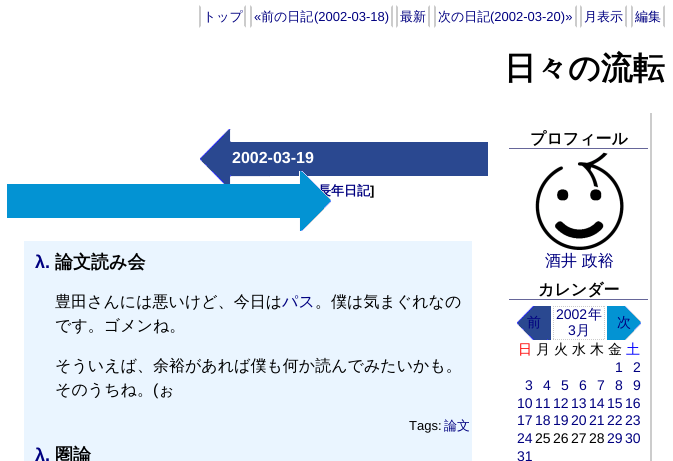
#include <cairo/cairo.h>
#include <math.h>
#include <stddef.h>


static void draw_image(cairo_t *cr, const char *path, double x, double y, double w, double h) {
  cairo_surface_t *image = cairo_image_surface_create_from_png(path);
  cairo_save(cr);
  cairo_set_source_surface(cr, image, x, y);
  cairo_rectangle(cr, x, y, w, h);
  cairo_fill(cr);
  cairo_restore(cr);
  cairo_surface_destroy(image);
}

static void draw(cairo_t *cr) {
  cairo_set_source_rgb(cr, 1, 1, 1);
  cairo_paint(cr);
  cairo_set_source_rgb(cr, 204 / 255.0, 204 / 255.0, 204 / 255.0);
  cairo_new_path(cr);
  cairo_move_to(cr, 246, 5);
  cairo_line_to(cr, 246, 28);
  cairo_line_to(cr, 244, 26);
  cairo_line_to(cr, 244, 7);
  cairo_close_path(cr);
  cairo_fill(cr);
  cairo_set_source_rgb(cr, 1, 1, 1);
  cairo_new_path(cr);
  cairo_move_to(cr, 246, 28);
  cairo_line_to(cr, 199, 28);
  cairo_line_to(cr, 201, 26);
  cairo_line_to(cr, 244, 26);
  cairo_close_path(cr);
  cairo_fill(cr);
  cairo_set_source_rgb(cr, 204 / 255.0, 204 / 255.0, 204 / 255.0);
  cairo_new_path(cr);
  cairo_move_to(cr, 199, 28);
  cairo_line_to(cr, 199, 5);
  cairo_line_to(cr, 201, 7);
  cairo_line_to(cr, 201, 26);
  cairo_close_path(cr);
  cairo_fill(cr);
  cairo_new_path(cr);
  cairo_move_to(cr, 393, 5);
  cairo_line_to(cr, 393, 28);
  cairo_line_to(cr, 391, 26);
  cairo_line_to(cr, 391, 7);
  cairo_close_path(cr);
  cairo_fill(cr);
  cairo_set_source_rgb(cr, 1, 1, 1);
  cairo_new_path(cr);
  cairo_move_to(cr, 393, 28);
  cairo_line_to(cr, 250, 28);
  cairo_line_to(cr, 252, 26);
  cairo_line_to(cr, 391, 26);
  cairo_close_path(cr);
  cairo_fill(cr);
  cairo_set_source_rgb(cr, 204 / 255.0, 204 / 255.0, 204 / 255.0);
  cairo_new_path(cr);
  cairo_move_to(cr, 250, 28);
  cairo_line_to(cr, 250, 5);
  cairo_line_to(cr, 252, 7);
  cairo_line_to(cr, 252, 26);
  cairo_close_path(cr);
  cairo_fill(cr);
  cairo_new_path(cr);
  cairo_move_to(cr, 430, 5);
  cairo_line_to(cr, 430, 28);
  cairo_line_to(cr, 428, 26);
  cairo_line_to(cr, 428, 7);
  cairo_close_path(cr);
  cairo_fill(cr);
  cairo_set_source_rgb(cr, 1, 1, 1);
  cairo_new_path(cr);
  cairo_move_to(cr, 430, 28);
  cairo_line_to(cr, 396, 28);
  cairo_line_to(cr, 398, 26);
  cairo_line_to(cr, 428, 26);
  cairo_close_path(cr);
  cairo_fill(cr);
  cairo_set_source_rgb(cr, 204 / 255.0, 204 / 255.0, 204 / 255.0);
  cairo_new_path(cr);
  cairo_move_to(cr, 396, 28);
  cairo_line_to(cr, 396, 5);
  cairo_line_to(cr, 398, 7);
  cairo_line_to(cr, 398, 26);
  cairo_close_path(cr);
  cairo_fill(cr);
  cairo_new_path(cr);
  cairo_move_to(cr, 577, 5);
  cairo_line_to(cr, 577, 28);
  cairo_line_to(cr, 575, 26);
  cairo_line_to(cr, 575, 7);
  cairo_close_path(cr);
  cairo_fill(cr);
  cairo_set_source_rgb(cr, 1, 1, 1);
  cairo_new_path(cr);
  cairo_move_to(cr, 577, 28);
  cairo_line_to(cr, 434, 28);
  cairo_line_to(cr, 436, 26);
  cairo_line_to(cr, 575, 26);
  cairo_close_path(cr);
  cairo_fill(cr);
  cairo_set_source_rgb(cr, 204 / 255.0, 204 / 255.0, 204 / 255.0);
  cairo_new_path(cr);
  cairo_move_to(cr, 434, 28);
  cairo_line_to(cr, 434, 5);
  cairo_line_to(cr, 436, 7);
  cairo_line_to(cr, 436, 26);
  cairo_close_path(cr);
  cairo_fill(cr);
  cairo_new_path(cr);
  cairo_move_to(cr, 627, 5);
  cairo_line_to(cr, 627, 28);
  cairo_line_to(cr, 625, 26);
  cairo_line_to(cr, 625, 7);
  cairo_close_path(cr);
  cairo_fill(cr);
  cairo_set_source_rgb(cr, 1, 1, 1);
  cairo_new_path(cr);
  cairo_move_to(cr, 627, 28);
  cairo_line_to(cr, 580, 28);
  cairo_line_to(cr, 582, 26);
  cairo_line_to(cr, 625, 26);
  cairo_close_path(cr);
  cairo_fill(cr);
  cairo_set_source_rgb(cr, 204 / 255.0, 204 / 255.0, 204 / 255.0);
  cairo_new_path(cr);
  cairo_move_to(cr, 580, 28);
  cairo_line_to(cr, 580, 5);
  cairo_line_to(cr, 582, 7);
  cairo_line_to(cr, 582, 26);
  cairo_close_path(cr);
  cairo_fill(cr);
  cairo_new_path(cr);
  cairo_move_to(cr, 665, 5);
  cairo_line_to(cr, 665, 28);
  cairo_line_to(cr, 663, 26);
  cairo_line_to(cr, 663, 7);
  cairo_close_path(cr);
  cairo_fill(cr);
  cairo_set_source_rgb(cr, 1, 1, 1);
  cairo_new_path(cr);
  cairo_move_to(cr, 665, 28);
  cairo_line_to(cr, 631, 28);
  cairo_line_to(cr, 633, 26);
  cairo_line_to(cr, 663, 26);
  cairo_close_path(cr);
  cairo_fill(cr);
  cairo_set_source_rgb(cr, 204 / 255.0, 204 / 255.0, 204 / 255.0);
  cairo_new_path(cr);
  cairo_move_to(cr, 631, 28);
  cairo_line_to(cr, 631, 5);
  cairo_line_to(cr, 633, 7);
  cairo_line_to(cr, 633, 26);
  cairo_close_path(cr);
  cairo_fill(cr);
  draw_image(cr, "images/1.png", 200, 129, 288, 55);
  cairo_set_source_rgb(cr, 234 / 255.0, 245 / 255.0, 1);
  cairo_rectangle(cr, 24, 241, 448, 220);
  cairo_fill(cr);
  cairo_set_source_rgb(cr, 204 / 255.0, 204 / 255.0, 204 / 255.0);
  cairo_rectangle(cr, 650, 113, 2, 348);
  cairo_fill(cr);
  cairo_set_source_rgb(cr, 102 / 255.0, 102 / 255.0, 153 / 255.0);
  cairo_rectangle(cr, 509, 148, 139, 1);
  cairo_fill(cr);
  draw_image(cr, "images/3.png", 535, 152, 89, 98);
  cairo_rectangle(cr, 509, 299, 139, 1);
  cairo_fill(cr);
  draw_image(cr, "images/4.png", 517, 306, 34, 34);
  cairo_new_path(cr);
  cairo_move_to(cr, 553, 306.5);
  cairo_line_to(cr, 605, 306.5);
  cairo_move_to(cr, 604.5, 306);
  cairo_line_to(cr, 604.5, 340);
  cairo_move_to(cr, 553, 339.5);
  cairo_line_to(cr, 605, 339.5);
  cairo_move_to(cr, 553.5, 306);
  cairo_line_to(cr, 553.5, 340);
  cairo_set_source_rgb(cr, 204 / 255.0, 204 / 255.0, 204 / 255.0);
  cairo_set_line_width(cr, 1);
  cairo_set_dash(cr, (double[]){1, 1}, 2, 0);
  cairo_stroke(cr);
  draw_image(cr, "images/5.png", 607, 306, 34, 34);
  cairo_select_font_face(cr, "WenQuanYi Zen Hei Medium", CAIRO_FONT_SLANT_NORMAL, CAIRO_FONT_WEIGHT_NORMAL);
  cairo_set_font_size(cr, 13);
  cairo_set_source_rgb(cr, 0, 0, 128 / 255.0);
  cairo_move_to(cr, 203, 21);
  cairo_show_text(cr, "トップ");
  cairo_select_font_face(cr, "Liberation Sans", CAIRO_FONT_SLANT_NORMAL, CAIRO_FONT_WEIGHT_NORMAL);
  cairo_move_to(cr, 254, 21);
  cairo_show_text(cr, "«");
  cairo_select_font_face(cr, "WenQuanYi Zen Hei Medium", CAIRO_FONT_SLANT_NORMAL, CAIRO_FONT_WEIGHT_NORMAL);
  cairo_move_to(cr, 261, 21);
  cairo_show_text(cr, "前の日記");
  cairo_select_font_face(cr, "Liberation Sans", CAIRO_FONT_SLANT_NORMAL, CAIRO_FONT_WEIGHT_NORMAL);
  cairo_move_to(cr, 314, 21);
  cairo_show_text(cr, "(2002-03-18)");
  cairo_select_font_face(cr, "WenQuanYi Zen Hei Medium", CAIRO_FONT_SLANT_NORMAL, CAIRO_FONT_WEIGHT_NORMAL);
  cairo_move_to(cr, 400, 21);
  cairo_show_text(cr, "最新");
  cairo_move_to(cr, 438, 21);
  cairo_show_text(cr, "次の日記");
  cairo_select_font_face(cr, "Liberation Sans", CAIRO_FONT_SLANT_NORMAL, CAIRO_FONT_WEIGHT_NORMAL);
  cairo_move_to(cr, 490, 21);
  cairo_show_text(cr, "(2002-03-20)»");
  cairo_select_font_face(cr, "WenQuanYi Zen Hei Medium", CAIRO_FONT_SLANT_NORMAL, CAIRO_FONT_WEIGHT_NORMAL);
  cairo_move_to(cr, 584, 21);
  cairo_show_text(cr, "月表示");
  cairo_move_to(cr, 635, 21);
  cairo_show_text(cr, "編集");
  cairo_select_font_face(cr, "WenQuanYi Zen Hei", CAIRO_FONT_SLANT_NORMAL, CAIRO_FONT_WEIGHT_BOLD);
  cairo_set_font_size(cr, 32);
  cairo_set_source_rgb(cr, 0, 0, 0);
  cairo_move_to(cr, 504, 79);
  cairo_show_text(cr, "日々の流転");
  cairo_select_font_face(cr, "Liberation Sans", CAIRO_FONT_SLANT_NORMAL, CAIRO_FONT_WEIGHT_BOLD);
  cairo_set_font_size(cr, 16);
  cairo_set_source_rgb(cr, 1, 1, 1);
  cairo_move_to(cr, 232, 163);
  cairo_show_text(cr, "2002-03-19");
  cairo_select_font_face(cr, "WenQuanYi Zen Hei", CAIRO_FONT_SLANT_NORMAL, CAIRO_FONT_WEIGHT_BOLD);
  cairo_set_font_size(cr, 13);
  cairo_set_source_rgb(cr, 0, 0, 128 / 255.0);
  cairo_move_to(cr, 318, 195);
  cairo_show_text(cr, "長年日記");
  draw_image(cr, "images/2.png", 7, 171, 324, 60);
  cairo_select_font_face(cr, "Liberation Sans", CAIRO_FONT_SLANT_NORMAL, CAIRO_FONT_WEIGHT_BOLD);
  cairo_set_source_rgb(cr, 0, 0, 0);
  cairo_move_to(cr, 370, 195);
  cairo_show_text(cr, "]");
  cairo_set_font_size(cr, 18);
  cairo_set_source_rgb(cr, 0, 0, 128 / 255.0);
  cairo_move_to(cr, 35, 268);
  cairo_show_text(cr, "λ.");
  cairo_select_font_face(cr, "WenQuanYi Zen Hei", CAIRO_FONT_SLANT_NORMAL, CAIRO_FONT_WEIGHT_BOLD);
  cairo_set_source_rgb(cr, 0, 0, 0);
  cairo_move_to(cr, 55, 268);
  cairo_show_text(cr, "論文読み会");
  cairo_select_font_face(cr, "WenQuanYi Zen Hei Medium", CAIRO_FONT_SLANT_NORMAL, CAIRO_FONT_WEIGHT_NORMAL);
  cairo_set_font_size(cr, 16);
  cairo_move_to(cr, 55, 307);
  cairo_show_text(cr, "豊田さんには悪いけど、今日は");
  cairo_set_source_rgb(cr, 0, 0, 128 / 255.0);
  cairo_move_to(cr, 282, 307);
  cairo_show_text(cr, "パス");
  cairo_set_source_rgb(cr, 0, 0, 0);
  cairo_move_to(cr, 315, 307);
  cairo_show_text(cr, "。僕は気まぐれなの");
  cairo_move_to(cr, 55, 331);
  cairo_show_text(cr, "です。ゴメンね。");
  cairo_move_to(cr, 55, 371);
  cairo_show_text(cr, "そういえば、余裕があれば僕も何か読んでみたいかも。");
  cairo_move_to(cr, 55, 395);
  cairo_show_text(cr, "そのうちね。");
  cairo_select_font_face(cr, "Liberation Sans", CAIRO_FONT_SLANT_NORMAL, CAIRO_FONT_WEIGHT_NORMAL);
  cairo_move_to(cr, 153, 395);
  cairo_show_text(cr, "(");
  cairo_select_font_face(cr, "WenQuanYi Zen Hei Medium", CAIRO_FONT_SLANT_NORMAL, CAIRO_FONT_WEIGHT_NORMAL);
  cairo_move_to(cr, 158, 395);
  cairo_show_text(cr, "ぉ");
  cairo_select_font_face(cr, "Liberation Sans", CAIRO_FONT_SLANT_NORMAL, CAIRO_FONT_WEIGHT_NORMAL);
  cairo_set_font_size(cr, 13);
  cairo_move_to(cr, 409, 430);
  cairo_show_text(cr, "Tags:");
  cairo_select_font_face(cr, "WenQuanYi Zen Hei Medium", CAIRO_FONT_SLANT_NORMAL, CAIRO_FONT_WEIGHT_NORMAL);
  cairo_set_source_rgb(cr, 0, 0, 128 / 255.0);
  cairo_move_to(cr, 444, 430);
  cairo_show_text(cr, "論文");
  cairo_select_font_face(cr, "Liberation Sans", CAIRO_FONT_SLANT_NORMAL, CAIRO_FONT_WEIGHT_BOLD);
  cairo_set_font_size(cr, 18);
  cairo_move_to(cr, 35, 461);
  cairo_show_text(cr, "λ.");
  cairo_select_font_face(cr, "WenQuanYi Zen Hei", CAIRO_FONT_SLANT_NORMAL, CAIRO_FONT_WEIGHT_BOLD);
  cairo_set_source_rgb(cr, 0, 0, 0);
  cairo_move_to(cr, 55, 461);
  cairo_show_text(cr, "圏論");
  cairo_set_font_size(cr, 16);
  cairo_move_to(cr, 530, 144);
  cairo_show_text(cr, "プロフィール");
  cairo_select_font_face(cr, "WenQuanYi Zen Hei Medium", CAIRO_FONT_SLANT_NORMAL, CAIRO_FONT_WEIGHT_NORMAL);
  cairo_set_source_rgb(cr, 0, 0, 128 / 255.0);
  cairo_move_to(cr, 545, 266);
  cairo_show_text(cr, "酒井 政裕");
  cairo_select_font_face(cr, "WenQuanYi Zen Hei", CAIRO_FONT_SLANT_NORMAL, CAIRO_FONT_WEIGHT_BOLD);
  cairo_set_source_rgb(cr, 0, 0, 0);
  cairo_move_to(cr, 538, 295);
  cairo_show_text(cr, "カレンダー");
  cairo_select_font_face(cr, "WenQuanYi Zen Hei Medium", CAIRO_FONT_SLANT_NORMAL, CAIRO_FONT_WEIGHT_NORMAL);
  cairo_set_font_size(cr, 14);
  cairo_set_source_rgb(cr, 0, 0, 128 / 255.0);
  cairo_move_to(cr, 527, 327);
  cairo_show_text(cr, "前");
  cairo_select_font_face(cr, "Liberation Sans", CAIRO_FONT_SLANT_NORMAL, CAIRO_FONT_WEIGHT_NORMAL);
  cairo_move_to(cr, 556, 319);
  cairo_show_text(cr, "2002");
  cairo_select_font_face(cr, "WenQuanYi Zen Hei Medium", CAIRO_FONT_SLANT_NORMAL, CAIRO_FONT_WEIGHT_NORMAL);
  cairo_move_to(cr, 588, 319);
  cairo_show_text(cr, "年");
  cairo_select_font_face(cr, "Liberation Sans", CAIRO_FONT_SLANT_NORMAL, CAIRO_FONT_WEIGHT_NORMAL);
  cairo_move_to(cr, 568, 335);
  cairo_show_text(cr, "3");
  cairo_select_font_face(cr, "WenQuanYi Zen Hei Medium", CAIRO_FONT_SLANT_NORMAL, CAIRO_FONT_WEIGHT_NORMAL);
  cairo_move_to(cr, 576, 335);
  cairo_show_text(cr, "月");
  cairo_move_to(cr, 617, 327);
  cairo_show_text(cr, "次");
  cairo_set_source_rgb(cr, 1, 0, 0);
  cairo_move_to(cr, 518, 354);
  cairo_show_text(cr, "日");
  cairo_set_source_rgb(cr, 0, 0, 0);
  cairo_move_to(cr, 536, 354);
  cairo_show_text(cr, "月");
  cairo_move_to(cr, 554, 354);
  cairo_show_text(cr, "火");
  cairo_move_to(cr, 572, 354);
  cairo_show_text(cr, "水");
  cairo_move_to(cr, 590, 354);
  cairo_show_text(cr, "木");
  cairo_move_to(cr, 608, 354);
  cairo_show_text(cr, "金");
  cairo_set_source_rgb(cr, 0, 0, 1);
  cairo_move_to(cr, 626, 354);
  cairo_show_text(cr, "土");
  cairo_select_font_face(cr, "Liberation Sans", CAIRO_FONT_SLANT_NORMAL, CAIRO_FONT_WEIGHT_NORMAL);
  cairo_set_source_rgb(cr, 0, 0, 128 / 255.0);
  cairo_move_to(cr, 615, 372);
  cairo_show_text(cr, "1");
  cairo_move_to(cr, 633, 372);
  cairo_show_text(cr, "2");
  cairo_move_to(cr, 525, 390);
  cairo_show_text(cr, "3");
  cairo_move_to(cr, 543, 390);
  cairo_show_text(cr, "4");
  cairo_move_to(cr, 561, 390);
  cairo_show_text(cr, "5");
  cairo_move_to(cr, 579, 390);
  cairo_show_text(cr, "6");
  cairo_move_to(cr, 597, 390);
  cairo_show_text(cr, "7");
  cairo_move_to(cr, 615, 390);
  cairo_show_text(cr, "8");
  cairo_move_to(cr, 633, 390);
  cairo_show_text(cr, "9");
  cairo_move_to(cr, 517, 408);
  cairo_show_text(cr, "10");
  cairo_move_to(cr, 535, 408);
  cairo_show_text(cr, "11");
  cairo_move_to(cr, 553, 408);
  cairo_show_text(cr, "12");
  cairo_move_to(cr, 571, 408);
  cairo_show_text(cr, "13");
  cairo_move_to(cr, 589, 408);
  cairo_show_text(cr, "14");
  cairo_move_to(cr, 607, 408);
  cairo_show_text(cr, "15");
  cairo_move_to(cr, 625, 408);
  cairo_show_text(cr, "16");
  cairo_move_to(cr, 517, 425);
  cairo_show_text(cr, "17");
  cairo_move_to(cr, 535, 425);
  cairo_show_text(cr, "18");
  cairo_move_to(cr, 553, 425);
  cairo_show_text(cr, "19");
  cairo_move_to(cr, 571, 425);
  cairo_show_text(cr, "20");
  cairo_move_to(cr, 589, 425);
  cairo_show_text(cr, "21");
  cairo_move_to(cr, 607, 425);
  cairo_show_text(cr, "22");
  cairo_move_to(cr, 625, 425);
  cairo_show_text(cr, "23");
  cairo_move_to(cr, 517, 443);
  cairo_show_text(cr, "24");
  cairo_set_source_rgb(cr, 0, 0, 0);
  cairo_move_to(cr, 535, 443);
  cairo_show_text(cr, "25");
  cairo_move_to(cr, 553, 443);
  cairo_show_text(cr, "26");
  cairo_move_to(cr, 571, 443);
  cairo_show_text(cr, "27");
  cairo_move_to(cr, 589, 443);
  cairo_show_text(cr, "28");
  cairo_set_source_rgb(cr, 0, 0, 128 / 255.0);
  cairo_move_to(cr, 607, 443);
  cairo_show_text(cr, "29");
  cairo_move_to(cr, 625, 443);
  cairo_show_text(cr, "30");
  cairo_move_to(cr, 517, 461);
  cairo_show_text(cr, "31");
}

int main(void) {
  cairo_surface_t *surface = cairo_image_surface_create(CAIRO_FORMAT_RGB24, 673, 461);
  cairo_t *cr = cairo_create(surface);
  cairo_font_options_t *options = cairo_font_options_create();
  cairo_font_options_set_hint_metrics(options, CAIRO_HINT_METRICS_OFF);
  cairo_font_options_set_hint_style(options, CAIRO_HINT_STYLE_NONE);
  cairo_set_font_options(cr, options);
  cairo_set_miter_limit(cr, 4);
  draw(cr);
  cairo_surface_write_to_png(surface, "out.png");
  cairo_font_options_destroy(options);
  cairo_destroy(cr);
  cairo_surface_destroy(surface);
  return 0;
}
